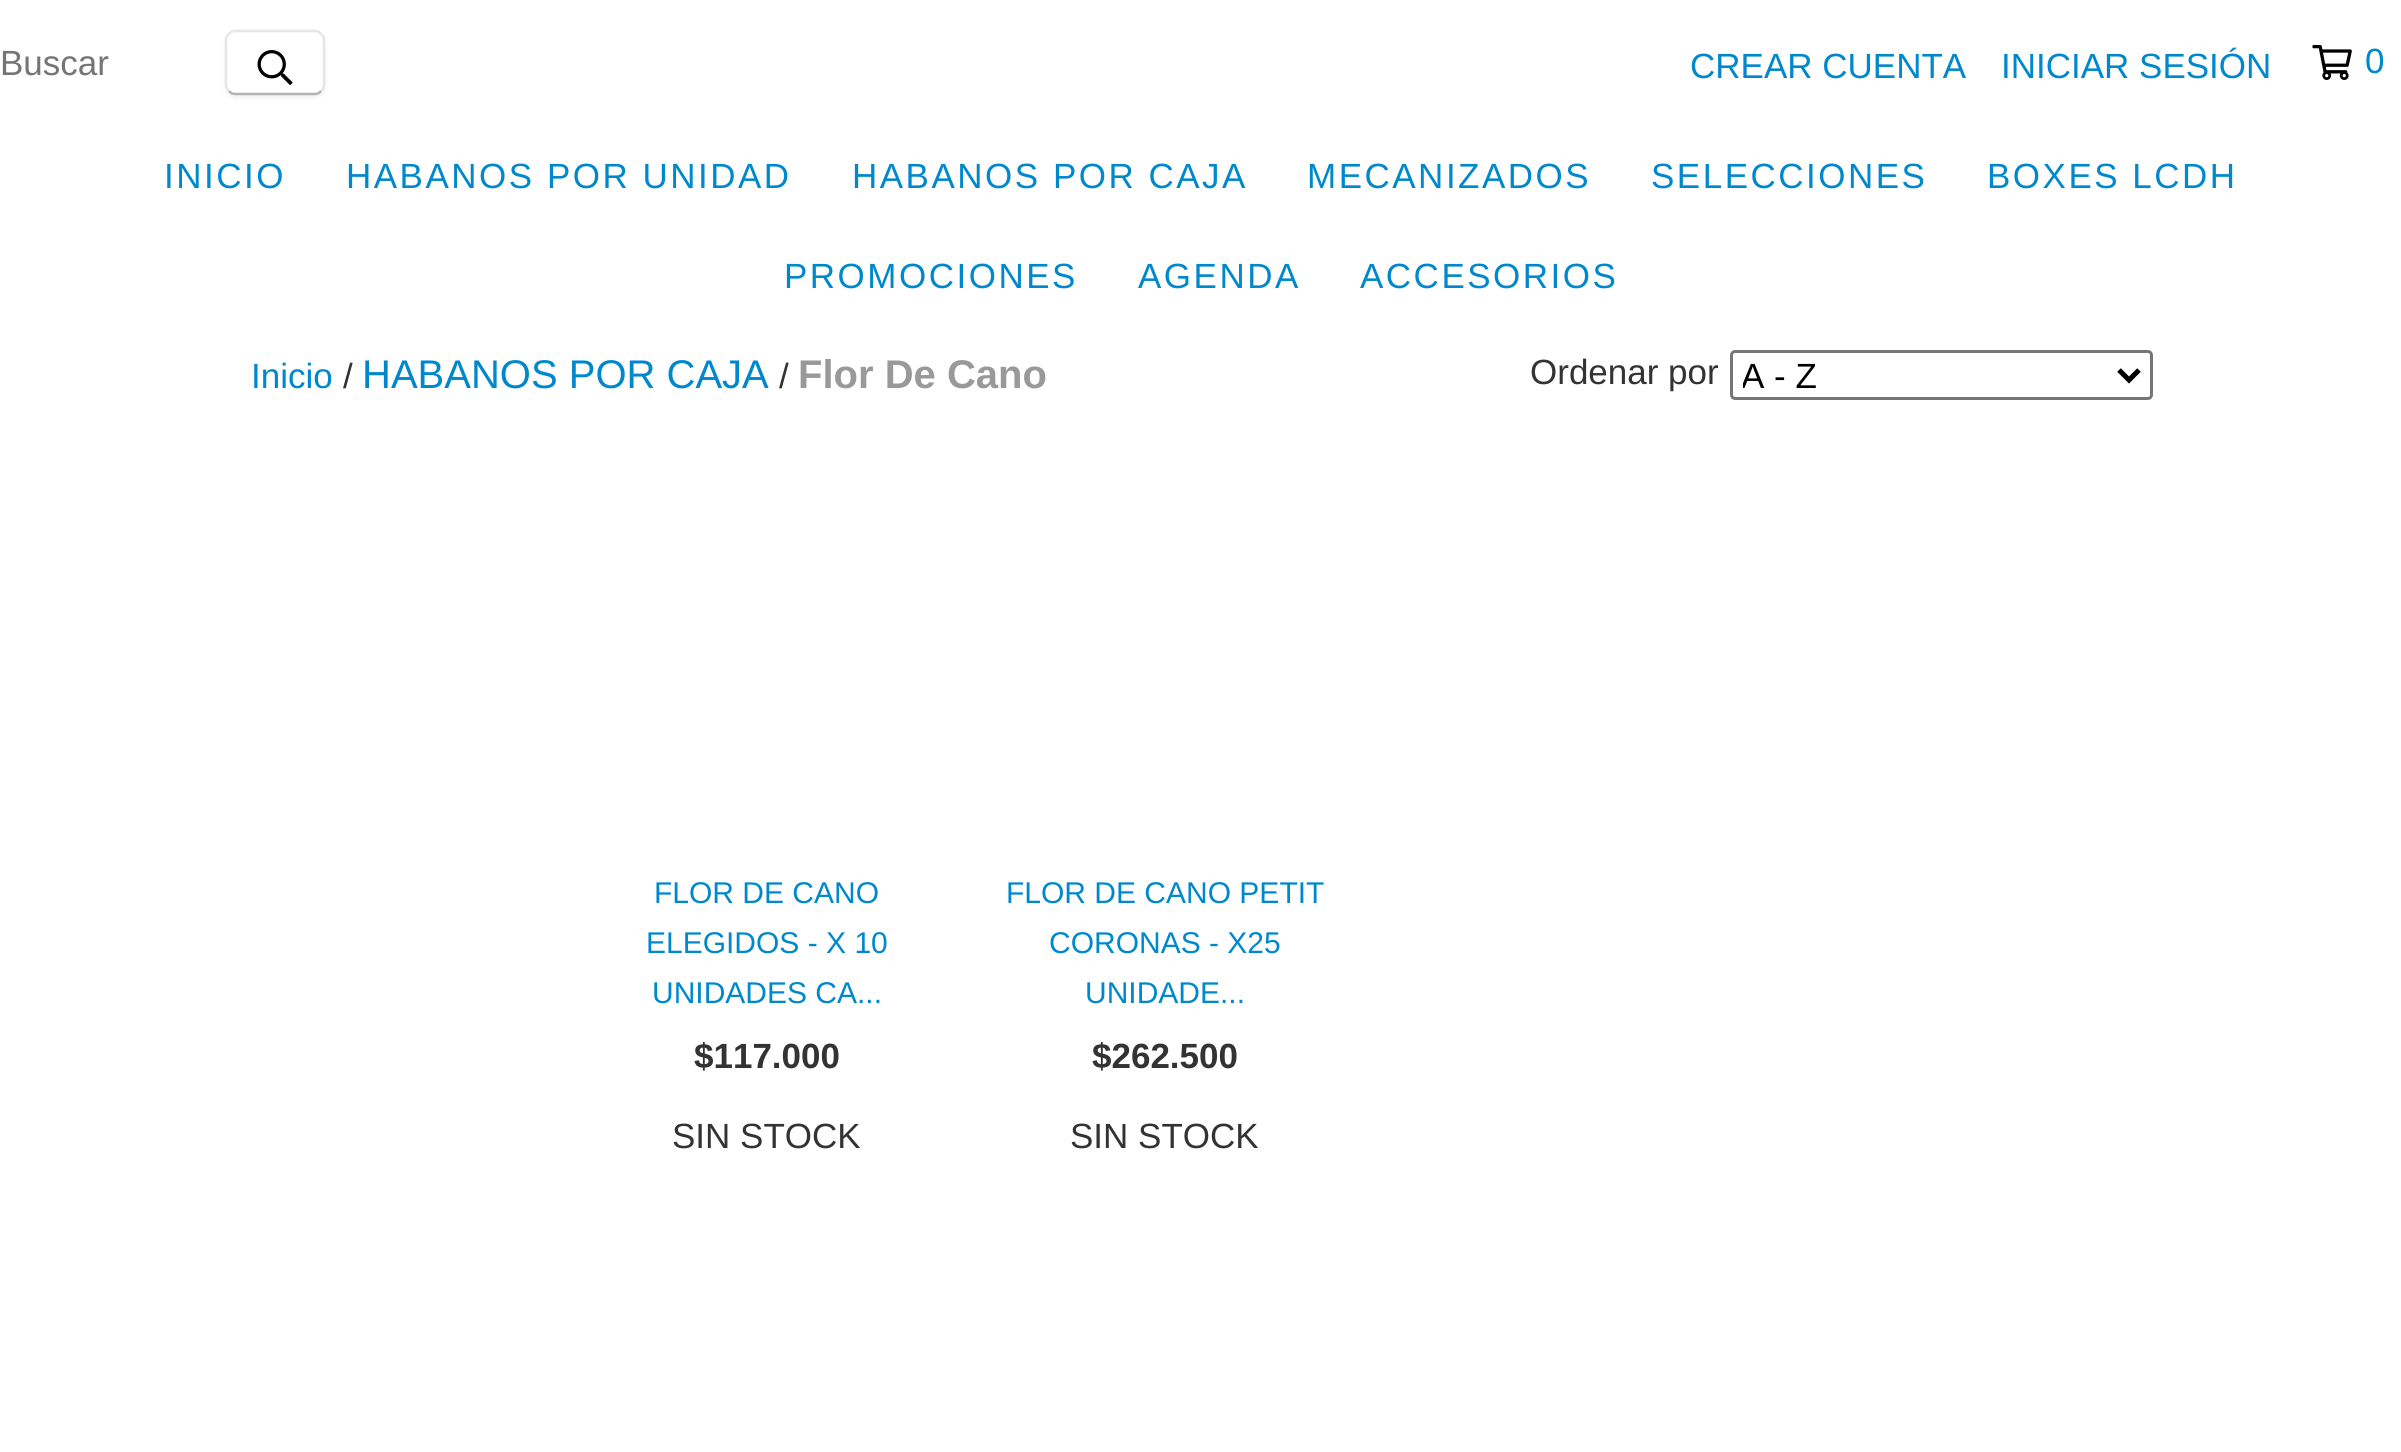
#include <cairo/cairo.h>
#include <math.h>
#include <stddef.h>


static void draw_spaced(cairo_t *cr, double x, double y, const char *s, double letter, double word) {
  cairo_move_to(cr, x, y);
  while (*s) {
    char ch[5] = {0};
    int n = 0;
    do ch[n++] = *s++; while ((*s & 0xC0) == 0x80);
    cairo_show_text(cr, ch);
    cairo_rel_move_to(cr, letter + word * (*ch == ' '), 0);
  }
}

static void rounded_rect(cairo_t *cr, double x, double y, double w, double h, double r) {
  cairo_new_sub_path(cr);
  cairo_arc(cr, x + w - r, y + h - r, r, 0, M_PI / 2);
  cairo_arc(cr, x + r, y + h - r, r, M_PI / 2, M_PI);
  cairo_arc(cr, x + r, y + r, r, M_PI, 1.5 * M_PI);
  cairo_arc(cr, x + w - r, y + r, r, 1.5 * M_PI, 2 * M_PI);
  cairo_close_path(cr);
}

static void draw_shadow(cairo_t *cr, double x, double y, double w, double h, double r, double blur, double alpha) {
  cairo_push_group_with_content(cr, CAIRO_CONTENT_ALPHA);
  cairo_set_operator(cr, CAIRO_OPERATOR_SOURCE);
  for (int i = 15; i >= -15 && fmin(w, h) + blur * i / 3 > 0; i -= 2) {
    double e = blur * i / 6;
    cairo_set_source_rgba(cr, 0, 0, 0, alpha * erfc((i - 1) / 8.5) / 2);
    rounded_rect(cr, x - e, y - e, w + 2 * e, h + 2 * e, fmax(0, fmin(r + e + blur * .6, fmin(w, h) / 2 + e)));
    cairo_fill(cr);
  }
  cairo_pattern_t *soft = cairo_pop_group(cr);
  cairo_mask(cr, soft);
  cairo_pattern_destroy(soft);
}

static void draw_image(cairo_t *cr, const char *path, double x, double y, double w, double h) {
  cairo_surface_t *image = cairo_image_surface_create_from_png(path);
  cairo_save(cr);
  cairo_set_source_surface(cr, image, x, y);
  cairo_rectangle(cr, x, y, w, h);
  cairo_fill(cr);
  cairo_restore(cr);
  cairo_surface_destroy(image);
}

static void draw(cairo_t *cr) {
  cairo_set_source_rgb(cr, 1, 1, 1);
  cairo_paint(cr);
  cairo_save(cr);
  cairo_set_fill_rule(cr, CAIRO_FILL_RULE_EVEN_ODD);
  cairo_new_path(cr);
  cairo_move_to(cr, 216, 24);
  cairo_line_to(cr, 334, 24);
  cairo_line_to(cr, 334, 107);
  cairo_line_to(cr, 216, 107);
  cairo_close_path(cr);
  cairo_move_to(cr, 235, 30);
  cairo_line_to(cr, 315, 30);
  cairo_curve_to(cr, 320.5, 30, 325, 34.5, 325, 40);
  cairo_line_to(cr, 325, 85);
  cairo_curve_to(cr, 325, 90.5, 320.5, 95, 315, 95);
  cairo_line_to(cr, 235, 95);
  cairo_curve_to(cr, 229.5, 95, 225, 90.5, 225, 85);
  cairo_line_to(cr, 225, 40);
  cairo_curve_to(cr, 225, 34.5, 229.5, 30, 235, 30);
  cairo_close_path(cr);
  cairo_clip(cr);
  cairo_set_source_rgb(cr, 0, 0, 0);
  draw_shadow(cr, 225, 33, 100, 65, 10, 2.5, 0.05);
  cairo_restore(cr);
  cairo_new_path(cr);
  cairo_move_to(cr, 321, 91);
  cairo_curve_to(cr, 319.5, 93, 317.5, 94, 315, 94);
  cairo_line_to(cr, 235, 94);
  cairo_curve_to(cr, 232.5, 94, 230.5, 93, 229, 91);
  cairo_set_source_rgb(cr, 179 / 255.0, 179 / 255.0, 179 / 255.0);
  cairo_set_line_width(cr, 2.5);
  cairo_stroke(cr);
  cairo_new_path(cr);
  cairo_move_to(cr, 229, 91);
  cairo_curve_to(cr, 227, 89.5, 226, 87.5, 226, 85);
  cairo_line_to(cr, 226, 40);
  cairo_curve_to(cr, 226, 37.5, 227, 35.5, 229, 34);
  cairo_curve_to(cr, 230.5, 32, 232.5, 31, 235, 31);
  cairo_line_to(cr, 315, 31);
  cairo_curve_to(cr, 317.5, 31, 319.5, 32, 321, 34);
  cairo_curve_to(cr, 323, 35.5, 324, 37.5, 324, 40);
  cairo_line_to(cr, 324, 85);
  cairo_curve_to(cr, 324, 87.5, 323, 89.5, 321, 91);
  cairo_set_source_rgba(cr, 0, 0, 0, 0.1);
  cairo_stroke(cr);
  draw_image(cr, "images/1.png", 257, 50, 36, 35);
  draw_image(cr, "images/2.png", 2312, 45, 40, 35);
  rounded_rect(cr, 1731.5, 351.5, 420, 47, 3.5);
  cairo_set_source_rgb(cr, 118 / 255.0, 118 / 255.0, 118 / 255.0);
  cairo_set_line_width(cr, 3);
  cairo_stroke(cr);
  cairo_new_path(cr);
  cairo_move_to(cr, 2119, 370);
  cairo_line_to(cr, 2129, 380);
  cairo_line_to(cr, 2139, 370);
  cairo_set_source_rgb(cr, 0, 0, 0);
  cairo_set_line_width(cr, 5);
  cairo_stroke(cr);
  cairo_select_font_face(cr, "Liberation Sans", CAIRO_FONT_SLANT_NORMAL, CAIRO_FONT_WEIGHT_NORMAL);
  cairo_set_font_size(cr, 35);
  cairo_set_source_rgb(cr, 117 / 255.0, 117 / 255.0, 117 / 255.0);
  cairo_move_to(cr, 0, 75);
  cairo_show_text(cr, "Buscar");
  cairo_set_source_rgb(cr, 0, 136 / 255.0, 204 / 255.0);
  cairo_move_to(cr, 1690, 78);
  cairo_show_text(cr, "CREAR CUENTA");
  cairo_move_to(cr, 2001, 78);
  cairo_show_text(cr, "INICIAR SESIÓN");
  draw_spaced(cr, 2365, 73, "0", 2.5, 0);
  draw_spaced(cr, 164, 188, "INICIO", 2.5, 0);
  draw_spaced(cr, 346, 188, "HABANOS POR UNIDAD", 2.5, 0);
  draw_spaced(cr, 852, 188, "HABANOS POR CAJA", 2.5, 0);
  draw_spaced(cr, 1307, 188, "MECANIZADOS", 2.5, 0);
  draw_spaced(cr, 1651, 188, "SELECCIONES", 2.5, 0);
  draw_spaced(cr, 1987, 188, "BOXES LCDH", 2.5, 0);
  draw_spaced(cr, 784, 288, "PROMOCIONES", 2.5, 0);
  draw_spaced(cr, 1138, 288, "AGENDA", 2.5, 0);
  draw_spaced(cr, 1360, 288, "ACCESORIOS", 2.5, 0);
  cairo_move_to(cr, 251, 388);
  cairo_show_text(cr, "Inicio");
  cairo_set_source_rgb(cr, 51 / 255.0, 51 / 255.0, 51 / 255.0);
  cairo_move_to(cr, 343, 388);
  cairo_show_text(cr, "/");
  cairo_set_font_size(cr, 40);
  cairo_set_source_rgb(cr, 0, 136 / 255.0, 204 / 255.0);
  cairo_move_to(cr, 362, 388);
  cairo_show_text(cr, "HABANOS POR CAJA");
  cairo_set_font_size(cr, 35);
  cairo_set_source_rgb(cr, 51 / 255.0, 51 / 255.0, 51 / 255.0);
  cairo_move_to(cr, 779, 388);
  cairo_show_text(cr, "/");
  cairo_select_font_face(cr, "Liberation Sans", CAIRO_FONT_SLANT_NORMAL, CAIRO_FONT_WEIGHT_BOLD);
  cairo_set_font_size(cr, 40);
  cairo_set_source_rgb(cr, 153 / 255.0, 153 / 255.0, 153 / 255.0);
  cairo_move_to(cr, 798, 388);
  cairo_show_text(cr, "Flor De Cano");
  cairo_select_font_face(cr, "Liberation Sans", CAIRO_FONT_SLANT_NORMAL, CAIRO_FONT_WEIGHT_NORMAL);
  cairo_set_font_size(cr, 35);
  cairo_set_source_rgb(cr, 51 / 255.0, 51 / 255.0, 51 / 255.0);
  cairo_move_to(cr, 1530, 384);
  cairo_show_text(cr, "Ordenar por");
  cairo_save(cr);
  cairo_rectangle(cr, 1743, 353, 367, 45);
  cairo_clip(cr);
  cairo_set_source_rgb(cr, 0, 0, 0);
  cairo_move_to(cr, 1741, 388);
  cairo_show_text(cr, "A - Z");
  cairo_restore(cr);
  cairo_set_font_size(cr, 30);
  cairo_set_source_rgb(cr, 0, 136 / 255.0, 204 / 255.0);
  cairo_move_to(cr, 654, 903);
  cairo_show_text(cr, "FLOR DE CANO");
  cairo_move_to(cr, 646, 953);
  cairo_show_text(cr, "ELEGIDOS - X 10");
  cairo_move_to(cr, 652, 1003);
  cairo_show_text(cr, "UNIDADES CA...");
  cairo_select_font_face(cr, "Liberation Sans", CAIRO_FONT_SLANT_NORMAL, CAIRO_FONT_WEIGHT_BOLD);
  cairo_set_font_size(cr, 35);
  cairo_set_source_rgb(cr, 51 / 255.0, 51 / 255.0, 51 / 255.0);
  cairo_move_to(cr, 694, 1068);
  cairo_show_text(cr, "$117.000");
  cairo_select_font_face(cr, "Liberation Sans", CAIRO_FONT_SLANT_NORMAL, CAIRO_FONT_WEIGHT_NORMAL);
  cairo_move_to(cr, 672, 1148);
  cairo_show_text(cr, "SIN STOCK");
  cairo_set_font_size(cr, 30);
  cairo_set_source_rgb(cr, 0, 136 / 255.0, 204 / 255.0);
  cairo_move_to(cr, 1006, 903);
  cairo_show_text(cr, "FLOR DE CANO PETIT");
  cairo_move_to(cr, 1049, 953);
  cairo_show_text(cr, "CORONAS - X25");
  cairo_move_to(cr, 1085, 1003);
  cairo_show_text(cr, "UNIDADE...");
  cairo_select_font_face(cr, "Liberation Sans", CAIRO_FONT_SLANT_NORMAL, CAIRO_FONT_WEIGHT_BOLD);
  cairo_set_font_size(cr, 35);
  cairo_set_source_rgb(cr, 51 / 255.0, 51 / 255.0, 51 / 255.0);
  cairo_move_to(cr, 1092, 1068);
  cairo_show_text(cr, "$262.500");
  cairo_select_font_face(cr, "Liberation Sans", CAIRO_FONT_SLANT_NORMAL, CAIRO_FONT_WEIGHT_NORMAL);
  cairo_move_to(cr, 1070, 1148);
  cairo_show_text(cr, "SIN STOCK");
}

int main(void) {
  cairo_surface_t *surface = cairo_image_surface_create(CAIRO_FORMAT_RGB24, 2401, 1452);
  cairo_t *cr = cairo_create(surface);
  cairo_font_options_t *options = cairo_font_options_create();
  cairo_font_options_set_hint_metrics(options, CAIRO_HINT_METRICS_OFF);
  cairo_font_options_set_hint_style(options, CAIRO_HINT_STYLE_NONE);
  cairo_set_font_options(cr, options);
  cairo_set_miter_limit(cr, 4);
  draw(cr);
  cairo_surface_write_to_png(surface, "out.png");
  cairo_font_options_destroy(options);
  cairo_destroy(cr);
  cairo_surface_destroy(surface);
  return 0;
}
